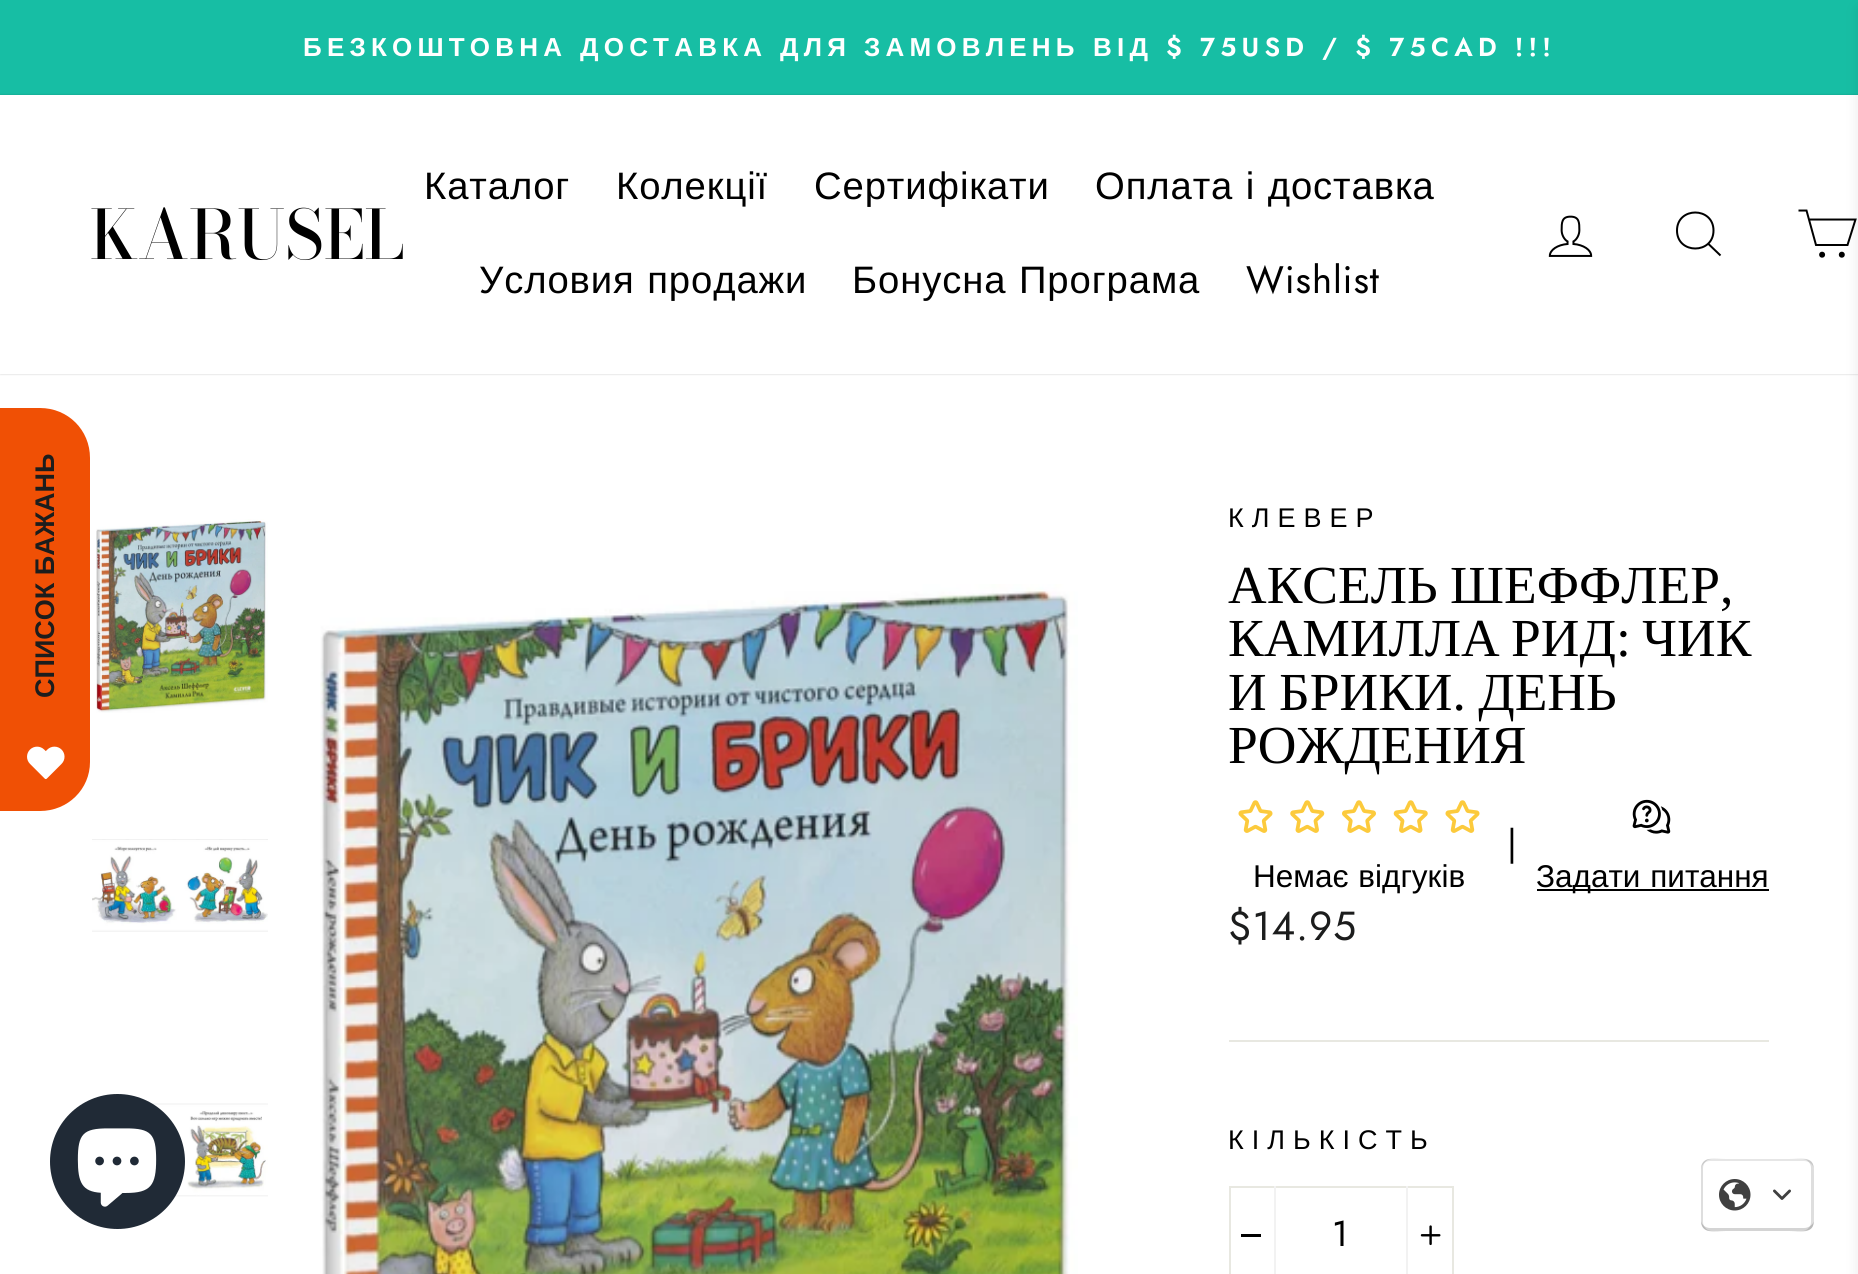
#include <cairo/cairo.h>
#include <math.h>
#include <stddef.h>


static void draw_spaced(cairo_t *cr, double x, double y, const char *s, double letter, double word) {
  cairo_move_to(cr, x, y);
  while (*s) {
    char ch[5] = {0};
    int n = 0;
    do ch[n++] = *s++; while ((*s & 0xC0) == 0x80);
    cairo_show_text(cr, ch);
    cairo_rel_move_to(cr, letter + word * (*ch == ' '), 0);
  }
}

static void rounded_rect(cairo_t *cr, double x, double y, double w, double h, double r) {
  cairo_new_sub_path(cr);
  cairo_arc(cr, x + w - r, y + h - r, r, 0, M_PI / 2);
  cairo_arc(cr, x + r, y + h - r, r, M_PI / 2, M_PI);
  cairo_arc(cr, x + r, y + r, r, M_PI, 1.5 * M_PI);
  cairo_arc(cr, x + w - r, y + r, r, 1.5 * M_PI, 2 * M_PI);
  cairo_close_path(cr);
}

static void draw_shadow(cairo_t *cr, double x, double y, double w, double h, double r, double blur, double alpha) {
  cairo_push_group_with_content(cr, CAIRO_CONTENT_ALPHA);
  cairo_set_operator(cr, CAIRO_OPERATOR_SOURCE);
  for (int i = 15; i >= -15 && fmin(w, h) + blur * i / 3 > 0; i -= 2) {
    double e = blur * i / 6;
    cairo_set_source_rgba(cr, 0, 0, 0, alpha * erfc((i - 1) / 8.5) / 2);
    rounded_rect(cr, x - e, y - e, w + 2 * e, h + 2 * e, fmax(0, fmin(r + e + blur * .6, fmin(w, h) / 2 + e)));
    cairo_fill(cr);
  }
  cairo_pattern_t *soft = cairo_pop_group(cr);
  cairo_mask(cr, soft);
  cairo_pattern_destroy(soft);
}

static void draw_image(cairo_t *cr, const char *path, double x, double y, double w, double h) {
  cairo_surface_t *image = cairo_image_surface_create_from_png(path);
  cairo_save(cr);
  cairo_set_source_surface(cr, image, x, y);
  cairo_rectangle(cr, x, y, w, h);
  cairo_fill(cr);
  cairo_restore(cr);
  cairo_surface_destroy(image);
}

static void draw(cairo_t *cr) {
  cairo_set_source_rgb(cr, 1, 1, 1);
  cairo_paint(cr);
  cairo_set_source_rgb(cr, 240 / 255.0, 80 / 255.0, 5 / 255.0);
  cairo_new_path(cr);
  cairo_move_to(cr, 0, 811);
  cairo_line_to(cr, 0, 408);
  cairo_line_to(cr, 40, 408);
  cairo_curve_to(cr, 68, 408, 90, 430, 90, 458);
  cairo_line_to(cr, 90, 762);
  cairo_curve_to(cr, 90, 789, 68, 811, 40, 811);
  cairo_close_path(cr);
  cairo_fill(cr);
  draw_image(cr, "images/1.png", 27, 746, 38, 34);
  cairo_set_source_rgb(cr, 23 / 255.0, 190 / 255.0, 164 / 255.0);
  cairo_rectangle(cr, 0, 0, 1858, 95);
  cairo_fill(cr);
  cairo_set_source_rgb(cr, 0, 0, 0);
  draw_shadow(cr, 0, 95, 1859, 279, 0, 1, 0.2);
  cairo_set_source_rgb(cr, 1, 1, 1);
  cairo_rectangle(cr, 0, 95, 1858, 279);
  cairo_fill(cr);
  draw_image(cr, "images/2.png", 1548, 215, 45, 42);
  cairo_new_path(cr);
  cairo_move_to(cr, 1713.5, 230.5);
  cairo_curve_to(cr, 1713.5, 254.5, 1677, 254.5, 1677, 230.5);
  cairo_curve_to(cr, 1677, 206.5, 1713.5, 206.5, 1713.5, 230.5);
  cairo_close_path(cr);
  cairo_move_to(cr, 1720.5, 255.5);
  cairo_line_to(cr, 1708.5, 244);
  cairo_set_source_rgb(cr, 0, 0, 0);
  cairo_stroke(cr);
  cairo_new_path(cr);
  cairo_move_to(cr, 1809.5, 219.5);
  cairo_line_to(cr, 1855.5, 219.5);
  cairo_line_to(cr, 1847.5, 245);
  cairo_line_to(cr, 1816, 245);
  cairo_line_to(cr, 1806.5, 210.5);
  cairo_line_to(cr, 1798.5, 210.5);
  cairo_stroke(cr);
  cairo_arc(cr, 1822.1, 254.7, 2, 0, 2 * M_PI);
  cairo_fill_preserve(cr);
  cairo_stroke(cr);
  cairo_arc(cr, 1841.8, 254.7, 2, 0, 2 * M_PI);
  cairo_fill_preserve(cr);
  cairo_stroke(cr);
  draw_image(cr, "images/3.png", 96, 519, 172, 194);
  draw_image(cr, "images/4.png", 92, 839, 176, 93);
  draw_image(cr, "images/5.png", 151, 1103, 117, 94);
  draw_image(cr, "images/6.png", 320, 584, 758, 690);
  draw_image(cr, "images/7.png", 1238, 800, 35, 33);
  draw_image(cr, "images/8.png", 1290, 800, 35, 33);
  draw_image(cr, "images/9.png", 1342, 800, 34, 33);
  draw_image(cr, "images/10.png", 1393, 800, 35, 33);
  draw_image(cr, "images/7.png", 1445, 800, 35, 33);
  draw_image(cr, "images/11.png", 1632, 799, 39, 35);
  cairo_rectangle(cr, 1537, 889, 232, 2);
  cairo_fill(cr);
  cairo_set_source_rgb(cr, 232 / 255.0, 232 / 255.0, 225 / 255.0);
  cairo_rectangle(cr, 1229, 1040, 540, 2);
  cairo_fill(cr);
  cairo_rectangle(cr, 1230, 1187, 223, 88);
  cairo_stroke(cr);
  cairo_set_source_rgb(cr, 242 / 255.0, 242 / 255.0, 242 / 255.0);
  cairo_rectangle(cr, 1274, 1186, 2, 88);
  cairo_fill(cr);
  cairo_set_source_rgb(cr, 0, 0, 0);
  cairo_rectangle(cr, 1241, 1234, 20, 3);
  cairo_fill(cr);
  cairo_set_source_rgb(cr, 242 / 255.0, 242 / 255.0, 242 / 255.0);
  cairo_rectangle(cr, 1406, 1186, 2, 88);
  cairo_fill(cr);
  draw_image(cr, "images/12.png", 1420, 1225, 21, 21);
  cairo_set_source_rgb(cr, 0, 0, 0);
  draw_shadow(cr, 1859, 9, 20, 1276, 0, 7, 0.1);
  cairo_set_source_rgb(cr, 32 / 255.0, 42 / 255.0, 54 / 255.0);
  cairo_arc(cr, 117.5, 1161.5, 67.5, 0, 2 * M_PI);
  cairo_fill(cr);
  draw_image(cr, "images/13.png", 77, 1128, 80, 79);
  cairo_set_source_rgb(cr, 230 / 255.0, 230 / 255.0, 230 / 255.0);
  cairo_new_path(cr);
  cairo_move_to(cr, 1710, 1161);
  cairo_line_to(cr, 1804, 1161);
  cairo_curve_to(cr, 1809, 1161, 1814, 1165, 1814, 1170);
  cairo_curve_to(cr, 1814, 1155, 1800, 1159, 1789, 1159);
  cairo_line_to(cr, 1726, 1159);
  cairo_curve_to(cr, 1715, 1159, 1701, 1155, 1701, 1170);
  cairo_curve_to(cr, 1701, 1165, 1705, 1161, 1710, 1161);
  cairo_close_path(cr);
  cairo_fill(cr);
  cairo_set_source_rgb(cr, 212 / 255.0, 212 / 255.0, 212 / 255.0);
  cairo_new_path(cr);
  cairo_move_to(cr, 1701, 1220);
  cairo_curve_to(cr, 1701, 1235, 1715, 1231, 1726, 1231);
  cairo_line_to(cr, 1789, 1231);
  cairo_curve_to(cr, 1800, 1231, 1814, 1235, 1814, 1220);
  cairo_curve_to(cr, 1814, 1224, 1809, 1228, 1804, 1228);
  cairo_line_to(cr, 1710, 1228);
  cairo_curve_to(cr, 1705, 1228, 1701, 1224, 1701, 1220);
  cairo_close_path(cr);
  cairo_fill(cr);
  cairo_set_source_rgba(cr, 0, 0, 0, 0.13);
  cairo_new_path(cr);
  cairo_move_to(cr, 1802, 1231);
  cairo_curve_to(cr, 1815, 1231, 1814, 1224, 1814, 1213);
  cairo_line_to(cr, 1814, 1177);
  cairo_curve_to(cr, 1814, 1166, 1815, 1159, 1802, 1159);
  cairo_curve_to(cr, 1807, 1159, 1811, 1163, 1811, 1168);
  cairo_line_to(cr, 1811, 1222);
  cairo_curve_to(cr, 1811, 1227, 1807, 1231, 1802, 1231);
  cairo_close_path(cr);
  cairo_fill(cr);
  cairo_new_path(cr);
  cairo_move_to(cr, 1710, 1159);
  cairo_curve_to(cr, 1705, 1159, 1701, 1163, 1701, 1168);
  cairo_line_to(cr, 1701, 1222);
  cairo_curve_to(cr, 1701, 1227, 1705, 1231, 1710, 1231);
  cairo_line_to(cr, 1712, 1231);
  cairo_curve_to(cr, 1707, 1231, 1703, 1227, 1703, 1222);
  cairo_line_to(cr, 1703, 1168);
  cairo_curve_to(cr, 1703, 1163, 1707, 1159, 1712, 1159);
  cairo_close_path(cr);
  cairo_fill(cr);
  draw_image(cr, "images/14.png", 1719, 1179, 32, 32);
  draw_image(cr, "images/15.png", 1773, 1189, 18, 11);
  cairo_select_font_face(cr, "Liberation Sans", CAIRO_FONT_SLANT_NORMAL, CAIRO_FONT_WEIGHT_BOLD);
  cairo_set_font_size(cr, 27);
  cairo_set_source_rgb(cr, 28 / 255.0, 29 / 255.0, 29 / 255.0);
  cairo_save(cr);
  cairo_translate(cr, 54, 698);
  cairo_rotate(cr, -90 * M_PI / 180);
  cairo_move_to(cr, 0, 0);
  cairo_show_text(cr, "СПИСОК БАЖАНЬ");
  cairo_restore(cr);
  cairo_set_font_size(cr, 26);
  cairo_set_source_rgb(cr, 1, 1, 1);
  draw_spaced(cr, 303, 56, "БЕЗКОШТОВНА", 5.2, 0);
  draw_spaced(cr, 580, 56, "ДОСТАВКА", 5.2, 0);
  draw_spaced(cr, 780, 56, "ДЛЯ", 5.2, 0);
  draw_spaced(cr, 864, 56, "ЗАМОВЛЕНЬ", 5.2, 0);
  draw_spaced(cr, 1093, 56, "ВІД", 5.2, 0);
  cairo_select_font_face(cr, "Jost SemiBold", CAIRO_FONT_SLANT_NORMAL, CAIRO_FONT_WEIGHT_NORMAL);
  draw_spaced(cr, 1166, 56, "$ 75USD / $ 75CAD !!!", 5.2, 0);
  cairo_select_font_face(cr, "Bodoni Moda Medium", CAIRO_FONT_SLANT_NORMAL, CAIRO_FONT_WEIGHT_NORMAL);
  cairo_set_font_size(cr, 67.5);
  cairo_set_source_rgb(cr, 0, 0, 0);
  cairo_move_to(cr, 90, 259);
  cairo_show_text(cr, "KARUSEL");
  cairo_select_font_face(cr, "Liberation Sans", CAIRO_FONT_SLANT_NORMAL, CAIRO_FONT_WEIGHT_NORMAL);
  cairo_set_font_size(cr, 38.25);
  draw_spaced(cr, 424, 199, "Каталог", 0.9, 0);
  draw_spaced(cr, 616, 199, "Колекції", 0.9, 0);
  draw_spaced(cr, 814, 199, "Сертифікати", 0.9, 0);
  draw_spaced(cr, 1095, 199, "Оплата і доставка", 0.9, 1);
  draw_spaced(cr, 479, 293, "Условия продажи", 0.9, 1);
  draw_spaced(cr, 852, 293, "Бонусна Програма", 0.9, 1);
  cairo_select_font_face(cr, "Jost", CAIRO_FONT_SLANT_NORMAL, CAIRO_FONT_WEIGHT_NORMAL);
  draw_spaced(cr, 1246, 293, "Wishlist", 0.9, 0);
  cairo_select_font_face(cr, "Liberation Sans", CAIRO_FONT_SLANT_NORMAL, CAIRO_FONT_WEIGHT_NORMAL);
  cairo_set_font_size(cr, 27);
  draw_spaced(cr, 1228, 527, "КЛЕВЕР", 8, 0);
  cairo_select_font_face(cr, "Liberation Serif", CAIRO_FONT_SLANT_NORMAL, CAIRO_FONT_WEIGHT_NORMAL);
  cairo_set_font_size(cr, 53.5);
  draw_spaced(cr, 1228, 603, "АКСЕЛЬ ШЕФФЛЕР,", 0, -1);
  draw_spaced(cr, 1228, 656, "КАМИЛЛА РИД: ЧИК", 0, -2);
  draw_spaced(cr, 1228, 710, "И БРИКИ. ДЕНЬ", 0, -1);
  cairo_move_to(cr, 1228, 763);
  cairo_show_text(cr, "РОЖДЕНИЯ");
  cairo_select_font_face(cr, "Jost", CAIRO_FONT_SLANT_NORMAL, CAIRO_FONT_WEIGHT_NORMAL);
  cairo_set_font_size(cr, 36);
  draw_spaced(cr, 1507, 856, "|", 0.9, 0);
  cairo_select_font_face(cr, "Liberation Sans", CAIRO_FONT_SLANT_NORMAL, CAIRO_FONT_WEIGHT_NORMAL);
  cairo_set_font_size(cr, 31.5);
  draw_spaced(cr, 1253, 887, "Немає відгуків", 0, 1);
  draw_spaced(cr, 1536, 887, "Задати питання", 0, 1);
  cairo_select_font_face(cr, "Jost", CAIRO_FONT_SLANT_NORMAL, CAIRO_FONT_WEIGHT_NORMAL);
  cairo_set_font_size(cr, 40.5);
  cairo_set_source_rgb(cr, 28 / 255.0, 29 / 255.0, 29 / 255.0);
  draw_spaced(cr, 1228, 940, "$14.95", 0.9, 0);
  cairo_select_font_face(cr, "Liberation Sans", CAIRO_FONT_SLANT_NORMAL, CAIRO_FONT_WEIGHT_NORMAL);
  cairo_set_font_size(cr, 27);
  cairo_set_source_rgb(cr, 0, 0, 0);
  draw_spaced(cr, 1228, 1149, "КІЛЬКІСТЬ", 8, 0);
  cairo_select_font_face(cr, "Jost", CAIRO_FONT_SLANT_NORMAL, CAIRO_FONT_WEIGHT_NORMAL);
  cairo_set_font_size(cr, 36);
  draw_spaced(cr, 1332, 1246, "1", 0.9, 0);
}

int main(void) {
  cairo_surface_t *surface = cairo_image_surface_create(CAIRO_FORMAT_RGB24, 1858, 1274);
  cairo_t *cr = cairo_create(surface);
  cairo_font_options_t *options = cairo_font_options_create();
  cairo_font_options_set_hint_metrics(options, CAIRO_HINT_METRICS_OFF);
  cairo_font_options_set_hint_style(options, CAIRO_HINT_STYLE_NONE);
  cairo_set_font_options(cr, options);
  cairo_set_miter_limit(cr, 4);
  draw(cr);
  cairo_surface_write_to_png(surface, "out.png");
  cairo_font_options_destroy(options);
  cairo_destroy(cr);
  cairo_surface_destroy(surface);
  return 0;
}
